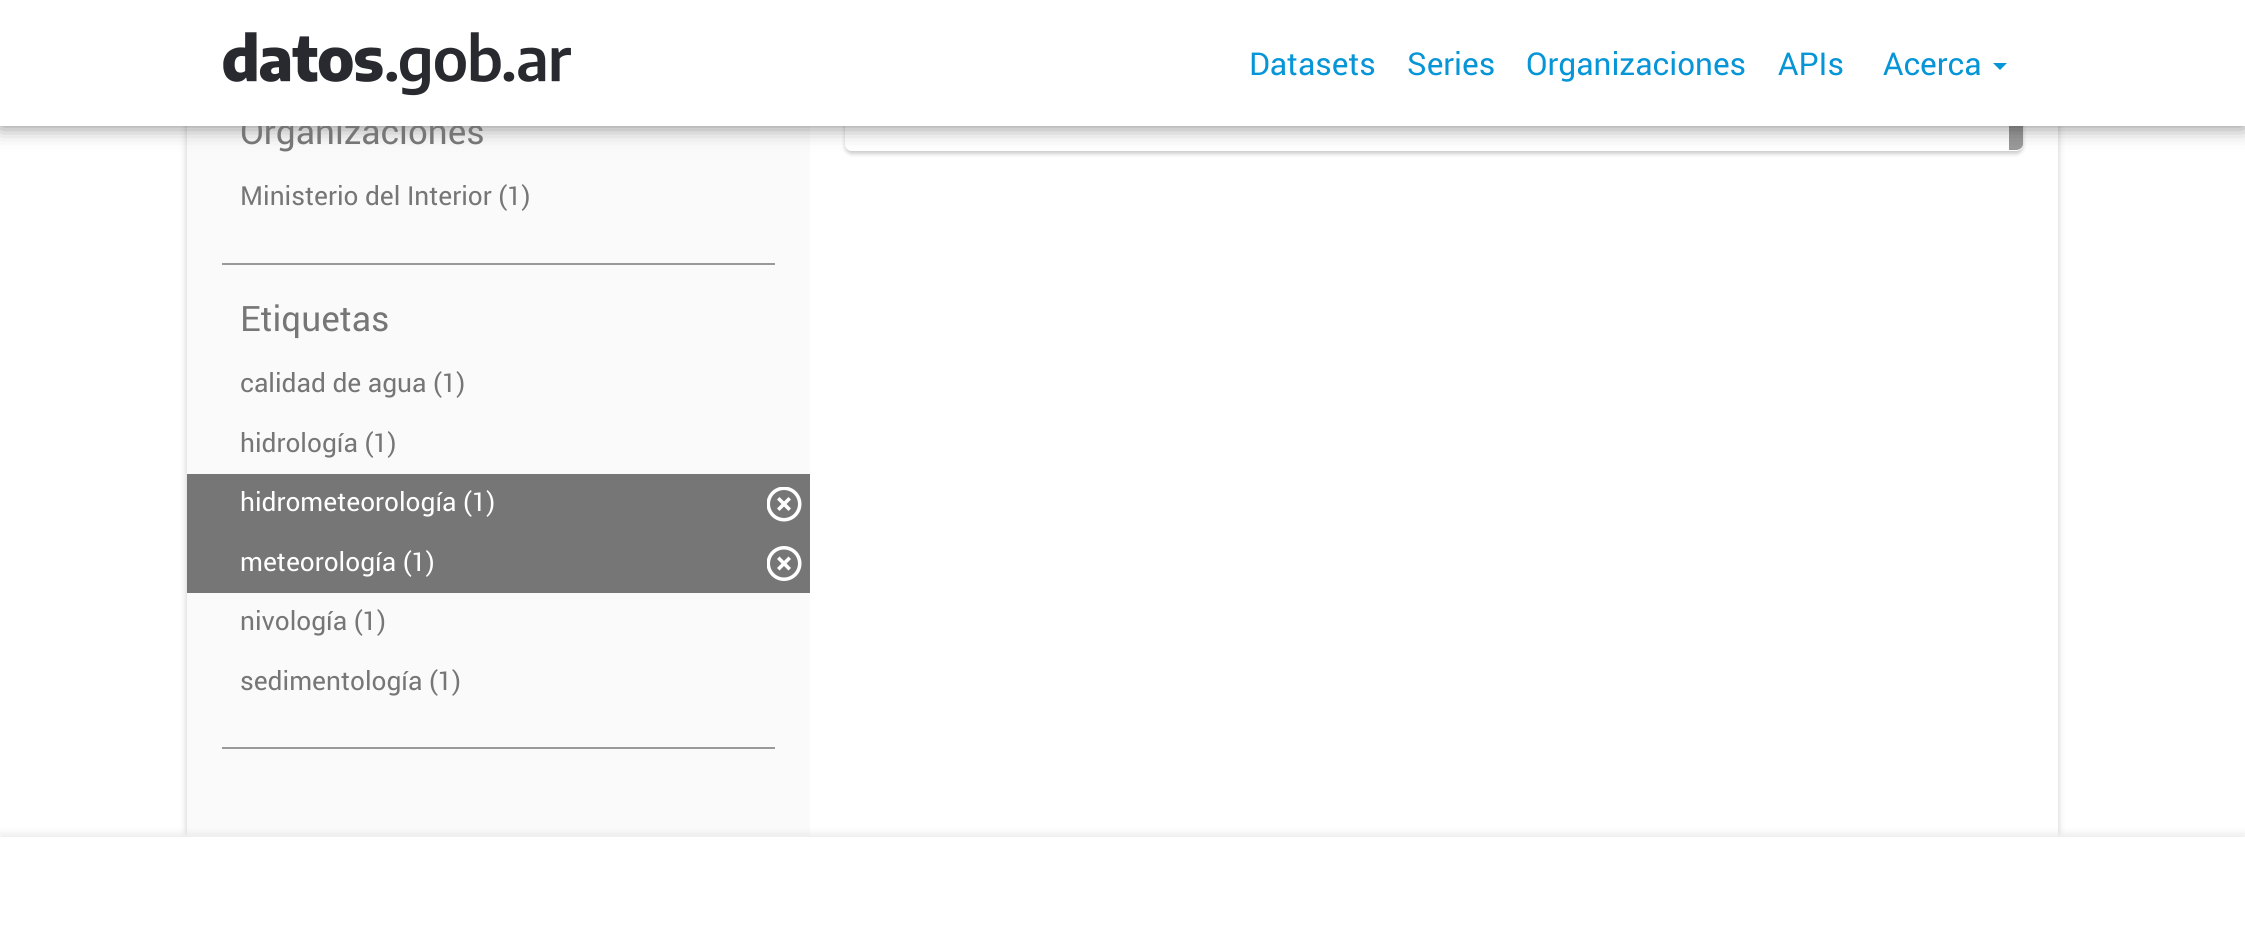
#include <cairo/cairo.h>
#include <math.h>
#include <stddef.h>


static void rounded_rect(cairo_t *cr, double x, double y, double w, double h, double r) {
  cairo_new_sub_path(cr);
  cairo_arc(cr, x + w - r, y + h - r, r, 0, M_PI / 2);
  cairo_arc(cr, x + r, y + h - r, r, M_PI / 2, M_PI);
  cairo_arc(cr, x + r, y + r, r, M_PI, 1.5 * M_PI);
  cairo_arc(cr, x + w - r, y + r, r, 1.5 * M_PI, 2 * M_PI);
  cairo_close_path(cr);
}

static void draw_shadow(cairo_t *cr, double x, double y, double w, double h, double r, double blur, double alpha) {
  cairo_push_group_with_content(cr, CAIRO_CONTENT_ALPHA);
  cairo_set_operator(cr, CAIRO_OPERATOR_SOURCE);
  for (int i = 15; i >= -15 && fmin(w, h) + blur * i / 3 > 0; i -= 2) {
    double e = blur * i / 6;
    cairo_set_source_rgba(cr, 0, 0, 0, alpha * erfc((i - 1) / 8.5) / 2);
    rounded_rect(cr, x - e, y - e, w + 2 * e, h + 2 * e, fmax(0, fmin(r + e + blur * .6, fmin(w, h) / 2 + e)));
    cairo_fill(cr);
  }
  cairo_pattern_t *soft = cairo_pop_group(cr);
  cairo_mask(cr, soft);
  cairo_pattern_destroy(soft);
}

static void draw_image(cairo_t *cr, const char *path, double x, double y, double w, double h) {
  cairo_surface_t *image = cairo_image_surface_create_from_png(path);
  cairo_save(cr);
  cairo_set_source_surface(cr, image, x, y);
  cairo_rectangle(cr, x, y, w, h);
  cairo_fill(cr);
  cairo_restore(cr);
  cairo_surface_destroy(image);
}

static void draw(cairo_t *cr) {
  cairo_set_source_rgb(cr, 1, 1, 1);
  cairo_paint(cr);
  cairo_save(cr);
  cairo_set_fill_rule(cr, CAIRO_FILL_RULE_EVEN_ODD);
  cairo_new_path(cr);
  cairo_move_to(cr, 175, 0);
  cairo_line_to(cr, 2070, 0);
  cairo_line_to(cr, 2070, 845);
  cairo_line_to(cr, 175, 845);
  cairo_close_path(cr);
  cairo_move_to(cr, 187, -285);
  cairo_line_to(cr, 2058, -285);
  cairo_line_to(cr, 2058, 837);
  cairo_line_to(cr, 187, 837);
  cairo_close_path(cr);
  cairo_clip(cr);
  cairo_set_source_rgb(cr, 150 / 255.0, 150 / 255.0, 150 / 255.0);
  draw_shadow(cr, 187, -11, 1871, 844, 0, 3.5, 0.5);
  cairo_restore(cr);
  cairo_save(cr);
  cairo_set_fill_rule(cr, CAIRO_FILL_RULE_EVEN_ODD);
  cairo_new_path(cr);
  cairo_move_to(cr, 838, 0);
  cairo_line_to(cr, 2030, 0);
  cairo_line_to(cr, 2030, 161);
  cairo_line_to(cr, 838, 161);
  cairo_close_path(cr);
  cairo_move_to(cr, 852, -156);
  cairo_line_to(cr, 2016, -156);
  cairo_curve_to(cr, 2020, -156, 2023, -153, 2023, -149);
  cairo_line_to(cr, 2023, 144);
  cairo_curve_to(cr, 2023, 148, 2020, 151, 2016, 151);
  cairo_line_to(cr, 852, 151);
  cairo_curve_to(cr, 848, 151, 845, 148, 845, 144);
  cairo_line_to(cr, 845, -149);
  cairo_curve_to(cr, 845, -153, 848, -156, 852, -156);
  cairo_close_path(cr);
  cairo_clip(cr);
  cairo_set_source_rgb(cr, 0, 0, 0);
  draw_shadow(cr, 845, -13, 1178, 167, 7, 2, 0.2);
  cairo_restore(cr);
  cairo_set_source_rgb(cr, 153 / 255.0, 153 / 255.0, 153 / 255.0);
  cairo_new_path(cr);
  cairo_move_to(cr, 2009, -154);
  cairo_line_to(cr, 2009, 150);
  cairo_line_to(cr, 2016, 150);
  cairo_curve_to(cr, 2020, 150, 2023, 147, 2023, 144);
  cairo_line_to(cr, 2023, -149);
  cairo_curve_to(cr, 2023, -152, 2020, -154, 2016, -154);
  cairo_close_path(cr);
  cairo_fill(cr);
  cairo_set_source_rgb(cr, 250 / 255.0, 250 / 255.0, 250 / 255.0);
  cairo_rectangle(cr, 187, 126, 623, 710);
  cairo_fill(cr);
  cairo_set_source_rgb(cr, 0, 0, 0);
  draw_shadow(cr, 0, 0, 2245, 126, 0, 10.5, 0.5);
  cairo_set_source_rgb(cr, 153 / 255.0, 153 / 255.0, 153 / 255.0);
  cairo_rectangle(cr, 222, 263, 553, 2);
  cairo_fill(cr);
  cairo_set_source_rgb(cr, 118 / 255.0, 118 / 255.0, 118 / 255.0);
  cairo_rectangle(cr, 187, 474, 623, 119);
  cairo_fill(cr);
  draw_image(cr, "images/2.png", 767, 487, 35, 35);
  draw_image(cr, "images/3.png", 767, 546, 35, 35);
  cairo_set_source_rgb(cr, 153 / 255.0, 153 / 255.0, 153 / 255.0);
  cairo_rectangle(cr, 222, 747, 553, 2);
  cairo_fill(cr);
  cairo_set_source_rgb(cr, 220 / 255.0, 220 / 255.0, 220 / 255.0);
  draw_shadow(cr, 0, 833, 2245, 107, 0, 3.5, 0.5);
  cairo_set_source_rgb(cr, 1, 1, 1);
  cairo_rectangle(cr, 0, 837, 2245, 92);
  cairo_fill(cr);
  cairo_select_font_face(cr, "Roboto", CAIRO_FONT_SLANT_NORMAL, CAIRO_FONT_WEIGHT_NORMAL);
  cairo_set_font_size(cr, 35);
  cairo_set_source_rgb(cr, 118 / 255.0, 118 / 255.0, 118 / 255.0);
  cairo_move_to(cr, 240, 144);
  cairo_show_text(cr, "Organizaciones");
  cairo_set_source_rgb(cr, 1, 1, 1);
  cairo_rectangle(cr, 0, 0, 2245, 126);
  cairo_fill(cr);
  cairo_set_source_rgb(cr, 6 / 255.0, 149 / 255.0, 214 / 255.0);
  cairo_new_path(cr);
  cairo_move_to(cr, 1993, 63);
  cairo_line_to(cr, 2007, 63);
  cairo_line_to(cr, 2000, 70);
  cairo_close_path(cr);
  cairo_fill(cr);
  cairo_set_font_size(cr, 31.5);
  cairo_move_to(cr, 1883, 75);
  cairo_show_text(cr, "Acerca");
  cairo_move_to(cr, 1778, 75);
  cairo_show_text(cr, "APIs");
  cairo_move_to(cr, 1526, 75);
  cairo_show_text(cr, "Organizaciones");
  cairo_move_to(cr, 1407, 75);
  cairo_show_text(cr, "Series");
  cairo_move_to(cr, 1249, 75);
  cairo_show_text(cr, "Datasets");
  draw_image(cr, "images/1.png", 223, 32, 348, 64);
  cairo_set_font_size(cr, 26.25);
  cairo_set_source_rgb(cr, 118 / 255.0, 118 / 255.0, 118 / 255.0);
  cairo_move_to(cr, 240, 205);
  cairo_show_text(cr, "Ministerio del Interior (1)");
  cairo_set_font_size(cr, 35);
  cairo_move_to(cr, 240, 331);
  cairo_show_text(cr, "Etiquetas");
  cairo_set_font_size(cr, 26.25);
  cairo_move_to(cr, 240, 392);
  cairo_show_text(cr, "calidad de agua (1)");
  cairo_move_to(cr, 240, 452);
  cairo_show_text(cr, "hidrología (1)");
  cairo_set_source_rgb(cr, 1, 1, 1);
  cairo_move_to(cr, 240, 511);
  cairo_show_text(cr, "hidrometeorología (1)");
  cairo_move_to(cr, 240, 571);
  cairo_show_text(cr, "meteorología (1)");
  cairo_set_source_rgb(cr, 118 / 255.0, 118 / 255.0, 118 / 255.0);
  cairo_move_to(cr, 240, 630);
  cairo_show_text(cr, "nivología (1)");
  cairo_move_to(cr, 240, 690);
  cairo_show_text(cr, "sedimentología (1)");
}

int main(void) {
  cairo_surface_t *surface = cairo_image_surface_create(CAIRO_FORMAT_RGB24, 2245, 929);
  cairo_t *cr = cairo_create(surface);
  cairo_font_options_t *options = cairo_font_options_create();
  cairo_font_options_set_hint_metrics(options, CAIRO_HINT_METRICS_OFF);
  cairo_font_options_set_hint_style(options, CAIRO_HINT_STYLE_NONE);
  cairo_set_font_options(cr, options);
  cairo_set_miter_limit(cr, 4);
  draw(cr);
  cairo_surface_write_to_png(surface, "out.png");
  cairo_font_options_destroy(options);
  cairo_destroy(cr);
  cairo_surface_destroy(surface);
  return 0;
}
